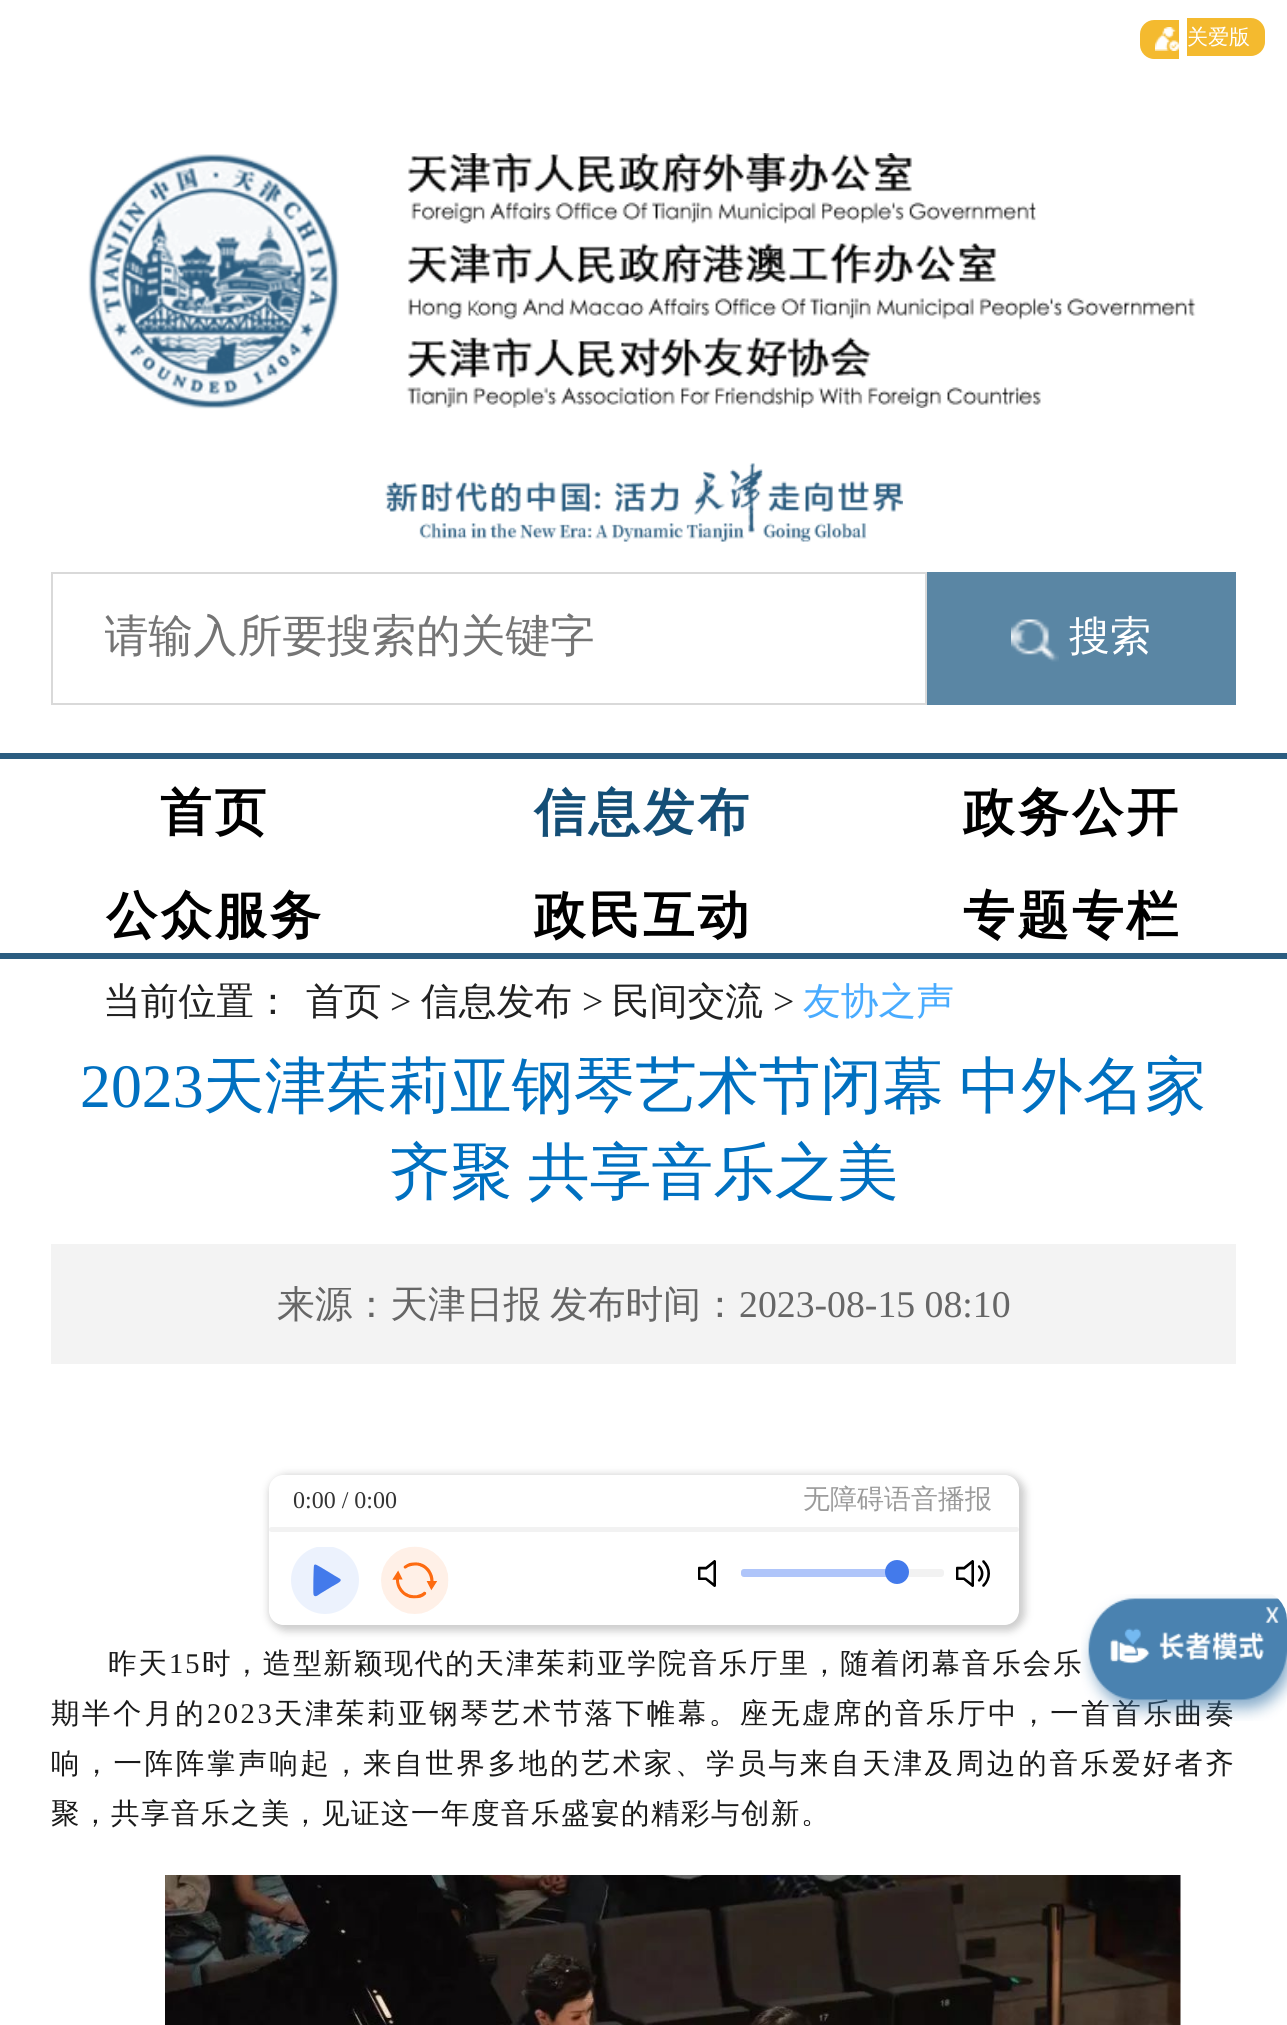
#include <cairo/cairo.h>
#include <math.h>
#include <stddef.h>


static void draw_spaced(cairo_t *cr, double x, double y, const char *s, double letter, double word) {
  cairo_move_to(cr, x, y);
  while (*s) {
    char ch[5] = {0};
    int n = 0;
    do ch[n++] = *s++; while ((*s & 0xC0) == 0x80);
    cairo_show_text(cr, ch);
    cairo_rel_move_to(cr, letter + word * (*ch == ' '), 0);
  }
}

static void rounded_rect(cairo_t *cr, double x, double y, double w, double h, double r) {
  cairo_new_sub_path(cr);
  cairo_arc(cr, x + w - r, y + h - r, r, 0, M_PI / 2);
  cairo_arc(cr, x + r, y + h - r, r, M_PI / 2, M_PI);
  cairo_arc(cr, x + r, y + r, r, M_PI, 1.5 * M_PI);
  cairo_arc(cr, x + w - r, y + r, r, 1.5 * M_PI, 2 * M_PI);
  cairo_close_path(cr);
}

static void draw_shadow(cairo_t *cr, double x, double y, double w, double h, double r, double blur, double alpha) {
  cairo_push_group_with_content(cr, CAIRO_CONTENT_ALPHA);
  cairo_set_operator(cr, CAIRO_OPERATOR_SOURCE);
  for (int i = 15; i >= -15 && fmin(w, h) + blur * i / 3 > 0; i -= 2) {
    double e = blur * i / 6;
    cairo_set_source_rgba(cr, 0, 0, 0, alpha * erfc((i - 1) / 8.5) / 2);
    rounded_rect(cr, x - e, y - e, w + 2 * e, h + 2 * e, fmax(0, fmin(r + e + blur * .6, fmin(w, h) / 2 + e)));
    cairo_fill(cr);
  }
  cairo_pattern_t *soft = cairo_pop_group(cr);
  cairo_mask(cr, soft);
  cairo_pattern_destroy(soft);
}

static void draw_image(cairo_t *cr, const char *path, double x, double y, double w, double h) {
  cairo_surface_t *image = cairo_image_surface_create_from_png(path);
  cairo_save(cr);
  cairo_set_source_surface(cr, image, x, y);
  cairo_rectangle(cr, x, y, w, h);
  cairo_fill(cr);
  cairo_restore(cr);
  cairo_surface_destroy(image);
}

static void draw(cairo_t *cr) {
  cairo_set_source_rgb(cr, 1, 1, 1);
  cairo_paint(cr);
  cairo_set_source_rgb(cr, 244 / 255.0, 186 / 255.0, 47 / 255.0);
  cairo_new_path(cr);
  cairo_move_to(cr, 1154, 20);
  cairo_line_to(cr, 1179, 20);
  cairo_line_to(cr, 1179, 59);
  cairo_line_to(cr, 1154, 59);
  cairo_curve_to(cr, 1146.5, 59, 1140, 52.5, 1140, 45);
  cairo_line_to(cr, 1140, 34);
  cairo_curve_to(cr, 1140, 26.5, 1146.5, 20, 1154, 20);
  cairo_close_path(cr);
  cairo_fill(cr);
  draw_image(cr, "images/1.png", 1155, 27, 24, 24);
  cairo_new_path(cr);
  cairo_move_to(cr, 1187, 18);
  cairo_line_to(cr, 1251, 18);
  cairo_curve_to(cr, 1258.5, 18, 1265, 24.5, 1265, 32);
  cairo_line_to(cr, 1265, 42);
  cairo_curve_to(cr, 1265, 49.5, 1258.5, 56, 1251, 56);
  cairo_line_to(cr, 1187, 56);
  cairo_close_path(cr);
  cairo_fill(cr);
  draw_image(cr, "images/2.png", 88, 154, 251, 255);
  draw_image(cr, "images/3.png", 406, 153, 790, 255);
  draw_image(cr, "images/4.png", 385, 462, 518, 80);
  cairo_rectangle(cr, 52, 573, 874, 131);
  cairo_set_source_rgb(cr, 217 / 255.0, 217 / 255.0, 217 / 255.0);
  cairo_stroke(cr);
  cairo_set_source_rgb(cr, 90 / 255.0, 134 / 255.0, 164 / 255.0);
  cairo_rectangle(cr, 927, 572, 309, 133);
  cairo_fill(cr);
  draw_image(cr, "images/5.png", 1011, 619, 48, 43);
  cairo_set_source_rgb(cr, 43 / 255.0, 93 / 255.0, 128 / 255.0);
  cairo_rectangle(cr, 0, 753, 1287, 6);
  cairo_fill(cr);
  cairo_rectangle(cr, 0, 953, 1287, 6);
  cairo_fill(cr);
  cairo_set_source_rgb(cr, 243 / 255.0, 243 / 255.0, 243 / 255.0);
  cairo_rectangle(cr, 51, 1244, 1185, 120);
  cairo_fill(cr);
  cairo_save(cr);
  cairo_set_fill_rule(cr, CAIRO_FILL_RULE_EVEN_ODD);
  cairo_new_path(cr);
  cairo_move_to(cr, 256, 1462);
  cairo_line_to(cr, 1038, 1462);
  cairo_line_to(cr, 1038, 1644);
  cairo_line_to(cr, 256, 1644);
  cairo_close_path(cr);
  cairo_move_to(cr, 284, 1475);
  cairo_line_to(cr, 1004, 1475);
  cairo_curve_to(cr, 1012.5, 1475, 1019, 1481.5, 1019, 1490);
  cairo_line_to(cr, 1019, 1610);
  cairo_curve_to(cr, 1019, 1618.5, 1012.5, 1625, 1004, 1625);
  cairo_line_to(cr, 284, 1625);
  cairo_curve_to(cr, 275.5, 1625, 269, 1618.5, 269, 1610);
  cairo_line_to(cr, 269, 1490);
  cairo_curve_to(cr, 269, 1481.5, 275.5, 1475, 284, 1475);
  cairo_close_path(cr);
  cairo_clip(cr);
  cairo_set_source_rgb(cr, 204 / 255.0, 204 / 255.0, 204 / 255.0);
  draw_shadow(cr, 269, 1475, 756, 156, 18, 4, 1);
  cairo_restore(cr);
  cairo_set_source_rgb(cr, 242 / 255.0, 242 / 255.0, 242 / 255.0);
  rounded_rect(cr, 269, 1527, 750, 5, 2.5);
  cairo_fill(cr);
  cairo_save(cr);
  cairo_rectangle(cr, 291, 1547, 68, 67);
  cairo_clip(cr);
  cairo_set_source_rgb(cr, 236 / 255.0, 242 / 255.0, 253 / 255.0);
  cairo_arc(cr, 325, 1580, 34, 0, 2 * M_PI);
  cairo_fill(cr);
  cairo_restore(cr);
  cairo_set_source_rgb(cr, 67 / 255.0, 122 / 255.0, 235 / 255.0);
  cairo_set_fill_rule(cr, CAIRO_FILL_RULE_EVEN_ODD);
  cairo_new_path(cr);
  cairo_move_to(cr, 339.5, 1578.5);
  cairo_curve_to(cr, 336.5, 1577, 317, 1564.5, 315.5, 1564.5);
  cairo_curve_to(cr, 314.5, 1564.5, 314, 1565, 314, 1565.5);
  cairo_curve_to(cr, 313.5, 1566.5, 313, 1592.5, 313.5, 1594.5);
  cairo_curve_to(cr, 313.5, 1595, 314, 1595.5, 314.5, 1596);
  cairo_curve_to(cr, 316.5, 1597, 319.5, 1594, 320.5, 1593.5);
  cairo_line_to(cr, 332, 1586.5);
  cairo_curve_to(cr, 337, 1583.5, 343.5, 1581, 339.5, 1578.5);
  cairo_close_path(cr);
  cairo_fill(cr);
  draw_image(cr, "images/6.png", 381, 1546, 68, 68);
  draw_image(cr, "images/7.png", 698, 1560, 18, 27);
  cairo_set_source_rgb(cr, 242 / 255.0, 242 / 255.0, 242 / 255.0);
  rounded_rect(cr, 741, 1569, 203, 8, 3);
  cairo_fill(cr);
  cairo_set_source_rgb(cr, 175 / 255.0, 197 / 255.0, 250 / 255.0);
  rounded_rect(cr, 741, 1569, 152, 8, 3);
  cairo_fill(cr);
  cairo_set_source_rgb(cr, 67 / 255.0, 122 / 255.0, 235 / 255.0);
  cairo_arc(cr, 897, 1572, 11, 0, 2 * M_PI);
  cairo_fill_preserve(cr);
  cairo_stroke(cr);
  draw_image(cr, "images/8.png", 956, 1560, 34, 27);
  draw_image(cr, "images/9.png", 165, 1875, 1016, 150);
  cairo_select_font_face(cr, "WenQuanYi Zen Hei Medium", CAIRO_FONT_SLANT_NORMAL, CAIRO_FONT_WEIGHT_NORMAL);
  cairo_set_font_size(cr, 21);
  cairo_set_source_rgb(cr, 1, 1, 1);
  cairo_move_to(cr, 1187, 44);
  cairo_show_text(cr, "关爱版");
  cairo_save(cr);
  cairo_set_fill_rule(cr, CAIRO_FILL_RULE_WINDING);
  cairo_rectangle(cr, 105, 606, 768, 62);
  cairo_clip(cr);
  cairo_set_font_size(cr, 44.6);
  cairo_set_source_rgb(cr, 117 / 255.0, 117 / 255.0, 117 / 255.0);
  cairo_move_to(cr, 104, 651);
  cairo_show_text(cr, "请输入所要搜索的关键字");
  cairo_restore(cr);
  cairo_set_font_size(cr, 41);
  cairo_move_to(cr, 1069, 650);
  cairo_show_text(cr, "搜索");
  cairo_select_font_face(cr, "WenQuanYi Zen Hei", CAIRO_FONT_SLANT_NORMAL, CAIRO_FONT_WEIGHT_BOLD);
  cairo_set_font_size(cr, 51.5);
  cairo_set_source_rgb(cr, 0, 0, 0);
  draw_spaced(cr, 160, 830, "首页", 3, 0);
  cairo_set_source_rgb(cr, 20 / 255.0, 78 / 255.0, 118 / 255.0);
  draw_spaced(cr, 534, 830, "信息发布", 3, 0);
  cairo_set_source_rgb(cr, 0, 0, 0);
  draw_spaced(cr, 963, 830, "政务公开", 3, 0);
  draw_spaced(cr, 106, 933, "公众服务", 3, 0);
  draw_spaced(cr, 534, 933, "政民互动", 3, 0);
  draw_spaced(cr, 963, 933, "专题专栏", 3, 0);
  cairo_select_font_face(cr, "WenQuanYi Zen Hei Medium", CAIRO_FONT_SLANT_NORMAL, CAIRO_FONT_WEIGHT_NORMAL);
  cairo_set_font_size(cr, 37.75);
  cairo_set_source_rgb(cr, 34 / 255.0, 34 / 255.0, 34 / 255.0);
  cairo_move_to(cr, 103, 1014);
  cairo_show_text(cr, "当前位置：");
  cairo_move_to(cr, 306, 1014);
  cairo_show_text(cr, "首页");
  cairo_select_font_face(cr, "Liberation Serif", CAIRO_FONT_SLANT_NORMAL, CAIRO_FONT_WEIGHT_NORMAL);
  cairo_move_to(cr, 390, 1014);
  cairo_show_text(cr, ">");
  cairo_select_font_face(cr, "WenQuanYi Zen Hei Medium", CAIRO_FONT_SLANT_NORMAL, CAIRO_FONT_WEIGHT_NORMAL);
  cairo_move_to(cr, 421, 1014);
  cairo_show_text(cr, "信息发布");
  cairo_select_font_face(cr, "Liberation Serif", CAIRO_FONT_SLANT_NORMAL, CAIRO_FONT_WEIGHT_NORMAL);
  cairo_move_to(cr, 582, 1014);
  cairo_show_text(cr, ">");
  cairo_select_font_face(cr, "WenQuanYi Zen Hei Medium", CAIRO_FONT_SLANT_NORMAL, CAIRO_FONT_WEIGHT_NORMAL);
  cairo_move_to(cr, 612, 1014);
  cairo_show_text(cr, "民间交流");
  cairo_select_font_face(cr, "Liberation Serif", CAIRO_FONT_SLANT_NORMAL, CAIRO_FONT_WEIGHT_NORMAL);
  cairo_move_to(cr, 773, 1014);
  cairo_show_text(cr, ">");
  cairo_select_font_face(cr, "WenQuanYi Zen Hei Medium", CAIRO_FONT_SLANT_NORMAL, CAIRO_FONT_WEIGHT_NORMAL);
  cairo_set_source_rgb(cr, 72 / 255.0, 171 / 255.0, 1);
  cairo_move_to(cr, 803, 1014);
  cairo_show_text(cr, "友协之声");
  cairo_select_font_face(cr, "Liberation Serif", CAIRO_FONT_SLANT_NORMAL, CAIRO_FONT_WEIGHT_NORMAL);
  cairo_set_font_size(cr, 61.75);
  cairo_set_source_rgb(cr, 0, 112 / 255.0, 192 / 255.0);
  cairo_move_to(cr, 80, 1107);
  cairo_show_text(cr, "2023");
  cairo_select_font_face(cr, "WenQuanYi Zen Hei Medium", CAIRO_FONT_SLANT_NORMAL, CAIRO_FONT_WEIGHT_NORMAL);
  draw_spaced(cr, 203, 1107, "天津茱莉亚钢琴艺术节闭幕 中外名家", 0, -3);
  draw_spaced(cr, 389, 1193, "齐聚 共享音乐之美", 0, -3);
  cairo_set_font_size(cr, 37.75);
  cairo_set_source_rgb(cr, 102 / 255.0, 102 / 255.0, 102 / 255.0);
  cairo_move_to(cr, 277, 1317);
  cairo_show_text(cr, "来源：天津日报");
  cairo_move_to(cr, 550, 1317);
  cairo_show_text(cr, "发布时间：");
  cairo_select_font_face(cr, "Liberation Serif", CAIRO_FONT_SLANT_NORMAL, CAIRO_FONT_WEIGHT_NORMAL);
  cairo_move_to(cr, 739, 1317);
  cairo_show_text(cr, "2023-08-15 08:10");
  cairo_set_font_size(cr, 24);
  cairo_set_source_rgb(cr, 51 / 255.0, 51 / 255.0, 51 / 255.0);
  cairo_move_to(cr, 293, 1508);
  cairo_show_text(cr, "0:00 / 0:00");
  cairo_select_font_face(cr, "WenQuanYi Zen Hei Medium", CAIRO_FONT_SLANT_NORMAL, CAIRO_FONT_WEIGHT_NORMAL);
  cairo_set_font_size(cr, 27);
  cairo_set_source_rgb(cr, 154 / 255.0, 154 / 255.0, 154 / 255.0);
  cairo_move_to(cr, 803, 1508);
  cairo_show_text(cr, "无障碍语音播报");
  cairo_set_font_size(cr, 28.5);
  cairo_set_source_rgb(cr, 26 / 255.0, 26 / 255.0, 26 / 255.0);
  draw_spaced(cr, 108, 1673, "昨天", 1.9, 0);
  cairo_select_font_face(cr, "Liberation Serif", CAIRO_FONT_SLANT_NORMAL, CAIRO_FONT_WEIGHT_NORMAL);
  draw_spaced(cr, 169, 1673, "15", 1.9, 0);
  cairo_select_font_face(cr, "WenQuanYi Zen Hei Medium", CAIRO_FONT_SLANT_NORMAL, CAIRO_FONT_WEIGHT_NORMAL);
  draw_spaced(cr, 202, 1673, "时，造型新颖现代的天津茱莉亚学院音乐厅里，随着闭幕音乐会乐", 1.9, 0);
  draw_spaced(cr, 51, 1723, "期半个月的", 2.55, 0);
  cairo_select_font_face(cr, "Liberation Serif", CAIRO_FONT_SLANT_NORMAL, CAIRO_FONT_WEIGHT_NORMAL);
  draw_spaced(cr, 207, 1723, "2023", 2.55, 0);
  cairo_select_font_face(cr, "WenQuanYi Zen Hei Medium", CAIRO_FONT_SLANT_NORMAL, CAIRO_FONT_WEIGHT_NORMAL);
  draw_spaced(cr, 274, 1723, "天津茱莉亚钢琴艺术节落下帷幕。座无虚席的音乐厅中，一首首乐曲奏", 2.55, 0);
  draw_spaced(cr, 51, 1773, "响，一阵阵掌声响起，来自世界多地的艺术家、学员与来自天津及周边的音乐爱好者齐", 2.7, 0);
  draw_spaced(cr, 51, 1823, "聚，共享音乐之美，见证这一年度音乐盛宴的精彩与创新。", 1.5, 0);
  draw_image(cr, "images/10.png", 1081, 1594, 206, 127);
}

int main(void) {
  cairo_surface_t *surface = cairo_image_surface_create(CAIRO_FORMAT_RGB24, 1287, 2025);
  cairo_t *cr = cairo_create(surface);
  cairo_font_options_t *options = cairo_font_options_create();
  cairo_font_options_set_hint_metrics(options, CAIRO_HINT_METRICS_OFF);
  cairo_font_options_set_hint_style(options, CAIRO_HINT_STYLE_NONE);
  cairo_set_font_options(cr, options);
  cairo_set_miter_limit(cr, 4);
  draw(cr);
  cairo_surface_write_to_png(surface, "out.png");
  cairo_font_options_destroy(options);
  cairo_destroy(cr);
  cairo_surface_destroy(surface);
  return 0;
}
